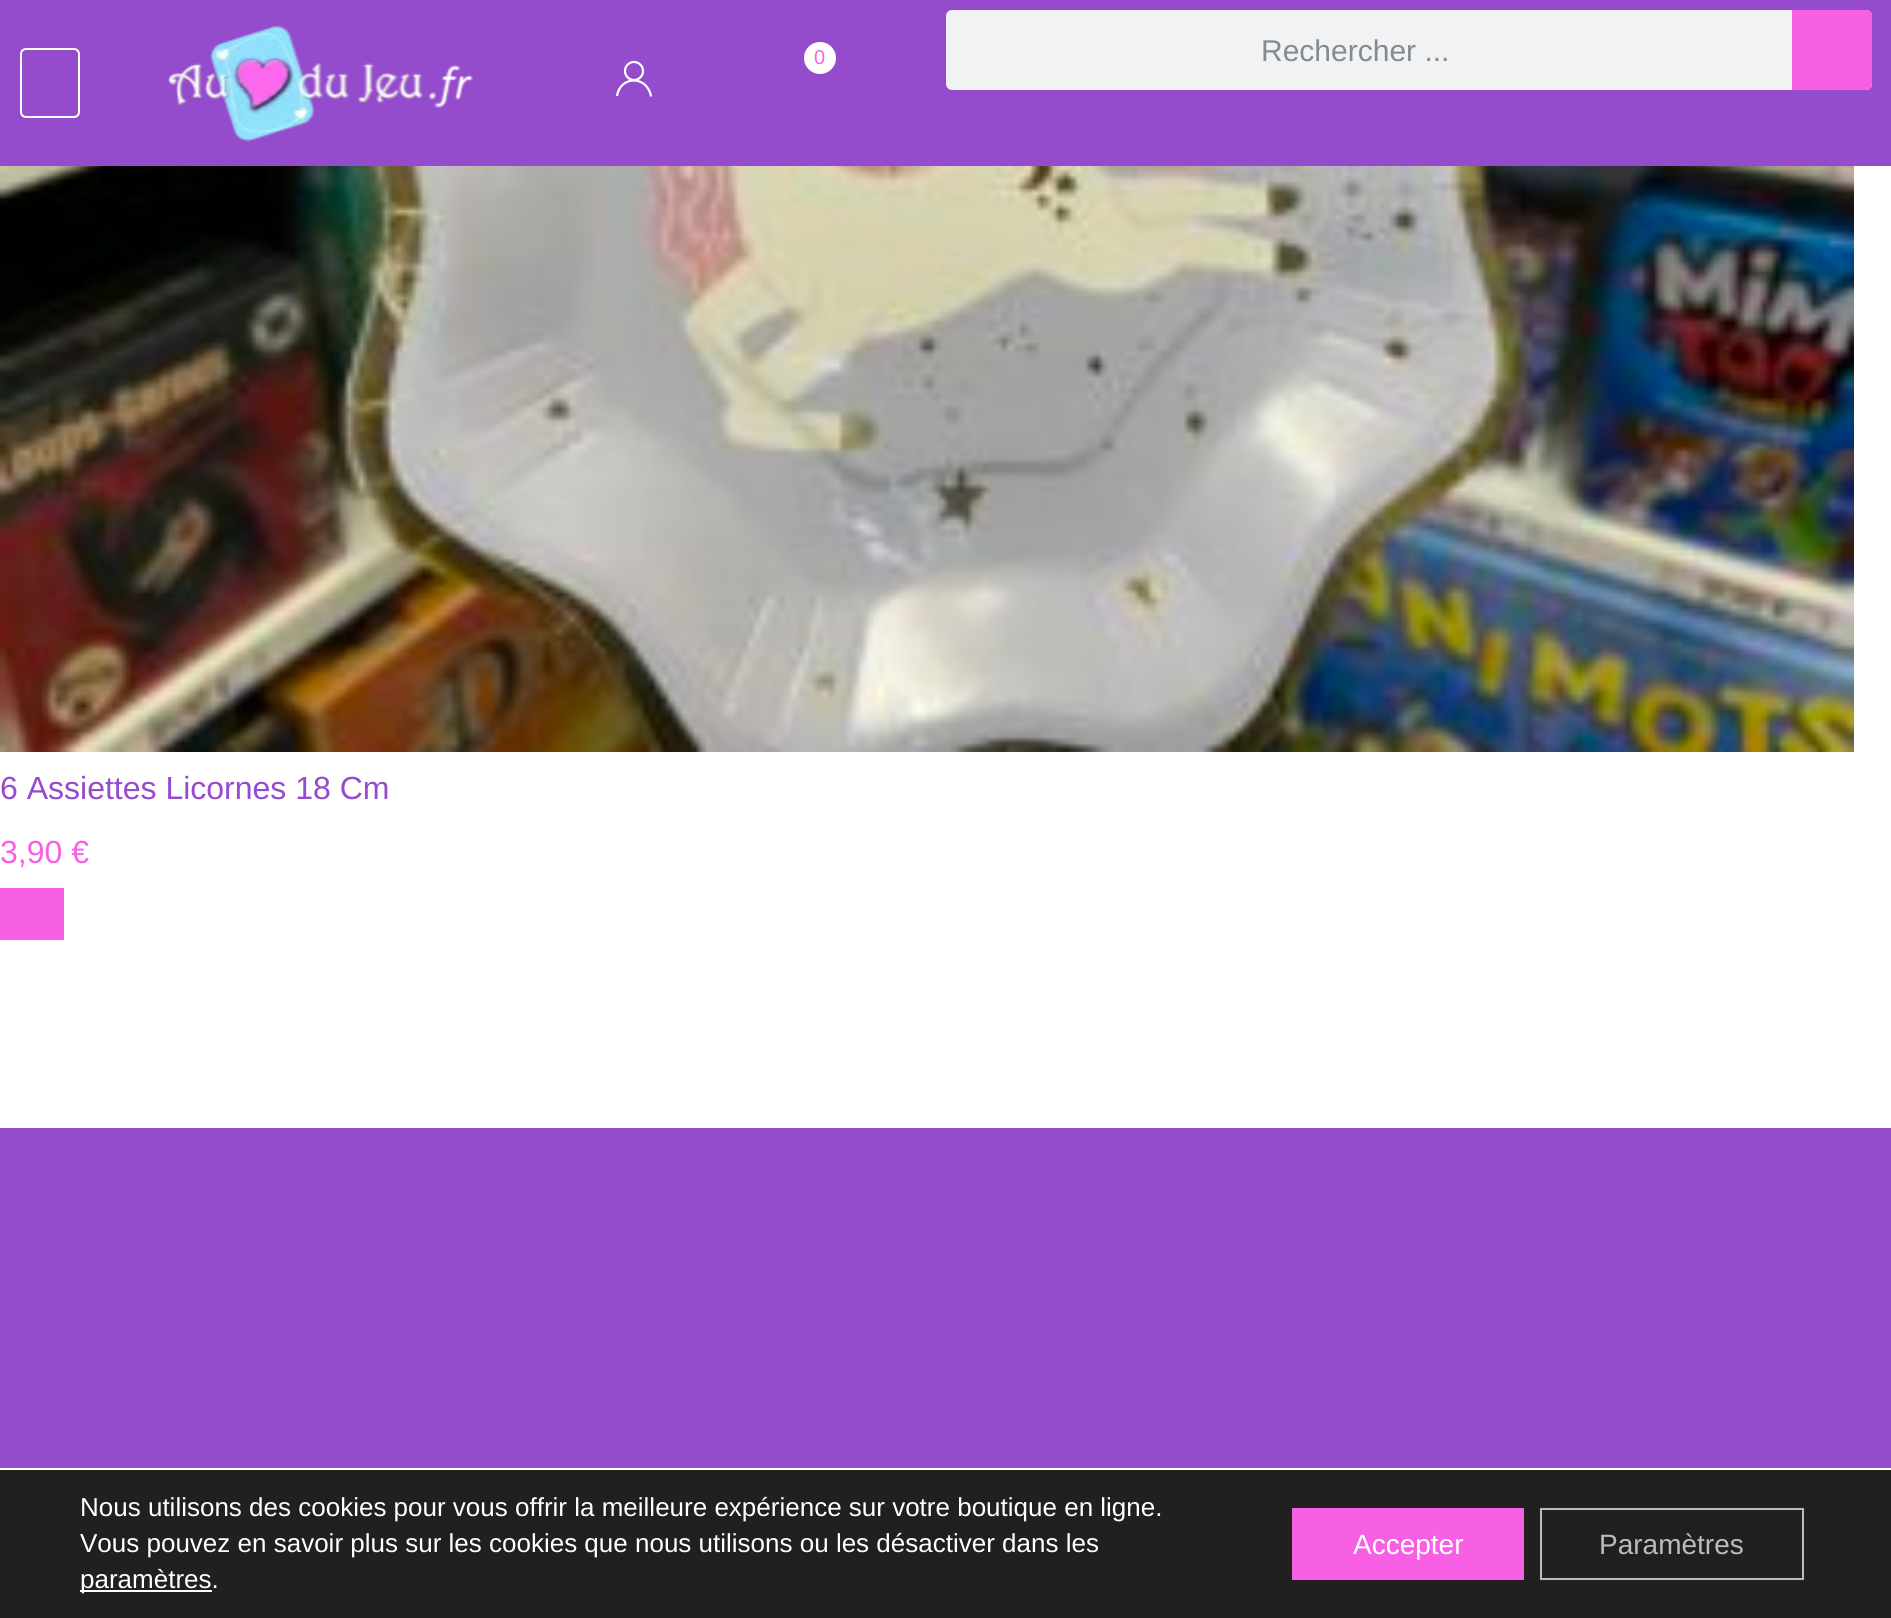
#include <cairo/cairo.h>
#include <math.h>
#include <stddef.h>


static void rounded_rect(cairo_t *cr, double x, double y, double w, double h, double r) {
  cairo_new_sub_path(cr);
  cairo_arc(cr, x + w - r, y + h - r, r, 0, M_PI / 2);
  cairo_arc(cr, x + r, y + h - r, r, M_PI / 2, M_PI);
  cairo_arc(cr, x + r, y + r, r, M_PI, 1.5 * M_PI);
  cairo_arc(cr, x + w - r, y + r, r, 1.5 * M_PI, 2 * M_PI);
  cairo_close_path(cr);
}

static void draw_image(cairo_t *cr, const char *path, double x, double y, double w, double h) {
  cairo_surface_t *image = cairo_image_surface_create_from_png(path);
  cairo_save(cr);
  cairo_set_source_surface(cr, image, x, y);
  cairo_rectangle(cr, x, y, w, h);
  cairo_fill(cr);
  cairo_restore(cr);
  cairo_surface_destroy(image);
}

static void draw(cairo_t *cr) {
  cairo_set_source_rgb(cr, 1, 1, 1);
  cairo_paint(cr);
  cairo_set_source_rgb(cr, 148 / 255.0, 75 / 255.0, 204 / 255.0);
  cairo_rectangle(cr, 0, 0, 1891, 166);
  cairo_fill(cr);
  rounded_rect(cr, 21, 49, 58, 68, 5);
  cairo_set_source_rgb(cr, 1, 1, 1);
  cairo_stroke(cr);
  draw_image(cr, "images/1.png", 167, 26, 306, 116);
  cairo_arc(cr, 820, 58, 16, 0, 2 * M_PI);
  cairo_fill(cr);
  cairo_arc(cr, 634, 71, 9, 0, 2 * M_PI);
  cairo_set_line_width(cr, 2.2);
  cairo_stroke(cr);
  cairo_new_path(cr);
  cairo_move_to(cr, 617, 96);
  cairo_curve_to(cr, 620.5, 75, 647.5, 75.5, 651, 96.5);
  cairo_stroke(cr);
  cairo_set_source_rgb(cr, 241 / 255.0, 242 / 255.0, 243 / 255.0);
  rounded_rect(cr, 946, 10, 926, 80, 6);
  cairo_fill(cr);
  cairo_set_source_rgb(cr, 247 / 255.0, 95 / 255.0, 229 / 255.0);
  cairo_new_path(cr);
  cairo_move_to(cr, 1792, 10);
  cairo_line_to(cr, 1866, 10);
  cairo_curve_to(cr, 1869.5, 10, 1872, 12.5, 1872, 16);
  cairo_line_to(cr, 1872, 84);
  cairo_curve_to(cr, 1872, 87.5, 1869.5, 90, 1866, 90);
  cairo_line_to(cr, 1792, 90);
  cairo_close_path(cr);
  cairo_fill(cr);
  draw_image(cr, "images/2.png", 0, 166, 1854, 586);
  cairo_rectangle(cr, 0, 888, 64, 52);
  cairo_fill(cr);
  cairo_set_source_rgb(cr, 148 / 255.0, 75 / 255.0, 204 / 255.0);
  cairo_rectangle(cr, 0, 1128, 1891, 340);
  cairo_fill(cr);
  cairo_set_source_rgb(cr, 32 / 255.0, 32 / 255.0, 32 / 255.0);
  cairo_rectangle(cr, 0, 1470, 1891, 148);
  cairo_fill(cr);
  cairo_set_source_rgb(cr, 1, 1, 1);
  cairo_rectangle(cr, 80, 1590, 132, 2);
  cairo_fill(cr);
  cairo_set_source_rgb(cr, 247 / 255.0, 95 / 255.0, 229 / 255.0);
  cairo_rectangle(cr, 1292, 1508, 232, 72);
  cairo_fill(cr);
  cairo_rectangle(cr, 1541, 1509, 262, 70);
  cairo_set_source_rgb(cr, 188 / 255.0, 188 / 255.0, 188 / 255.0);
  cairo_set_line_width(cr, 2);
  cairo_stroke(cr);
  cairo_select_font_face(cr, "Liberation Sans", CAIRO_FONT_SLANT_NORMAL, CAIRO_FONT_WEIGHT_NORMAL);
  cairo_set_font_size(cr, 20);
  cairo_set_source_rgb(cr, 247 / 255.0, 95 / 255.0, 229 / 255.0);
  cairo_move_to(cr, 814, 64);
  cairo_show_text(cr, "0");
  cairo_set_font_size(cr, 30);
  cairo_set_source_rgb(cr, 134 / 255.0, 138 / 255.0, 142 / 255.0);
  cairo_move_to(cr, 1261, 61);
  cairo_show_text(cr, "Rechercher ...");
  cairo_set_font_size(cr, 32);
  cairo_set_source_rgb(cr, 148 / 255.0, 75 / 255.0, 204 / 255.0);
  cairo_move_to(cr, 0, 799);
  cairo_show_text(cr, "6 Assiettes Licornes 18 Cm");
  cairo_set_source_rgb(cr, 247 / 255.0, 95 / 255.0, 229 / 255.0);
  cairo_move_to(cr, 0, 863);
  cairo_show_text(cr, "3,90 €");
  cairo_set_font_size(cr, 26);
  cairo_set_source_rgb(cr, 1, 1, 1);
  cairo_move_to(cr, 80, 1516);
  cairo_show_text(cr, "Nous utilisons des cookies pour vous offrir la meilleure expérience sur votre boutique en ligne.");
  cairo_move_to(cr, 80, 1552);
  cairo_show_text(cr, "Vous pouvez en savoir plus sur les cookies que nous utilisons ou les désactiver dans les");
  cairo_move_to(cr, 80, 1588);
  cairo_show_text(cr, "paramètres.");
  cairo_set_font_size(cr, 28);
  cairo_move_to(cr, 1353, 1554);
  cairo_show_text(cr, "Accepter");
  cairo_set_source_rgb(cr, 188 / 255.0, 188 / 255.0, 188 / 255.0);
  cairo_move_to(cr, 1599, 1554);
  cairo_show_text(cr, "Paramètres");
}

int main(void) {
  cairo_surface_t *surface = cairo_image_surface_create(CAIRO_FORMAT_RGB24, 1891, 1618);
  cairo_t *cr = cairo_create(surface);
  cairo_font_options_t *options = cairo_font_options_create();
  cairo_font_options_set_hint_metrics(options, CAIRO_HINT_METRICS_OFF);
  cairo_font_options_set_hint_style(options, CAIRO_HINT_STYLE_NONE);
  cairo_set_font_options(cr, options);
  cairo_set_miter_limit(cr, 4);
  draw(cr);
  cairo_surface_write_to_png(surface, "out.png");
  cairo_font_options_destroy(options);
  cairo_destroy(cr);
  cairo_surface_destroy(surface);
  return 0;
}
